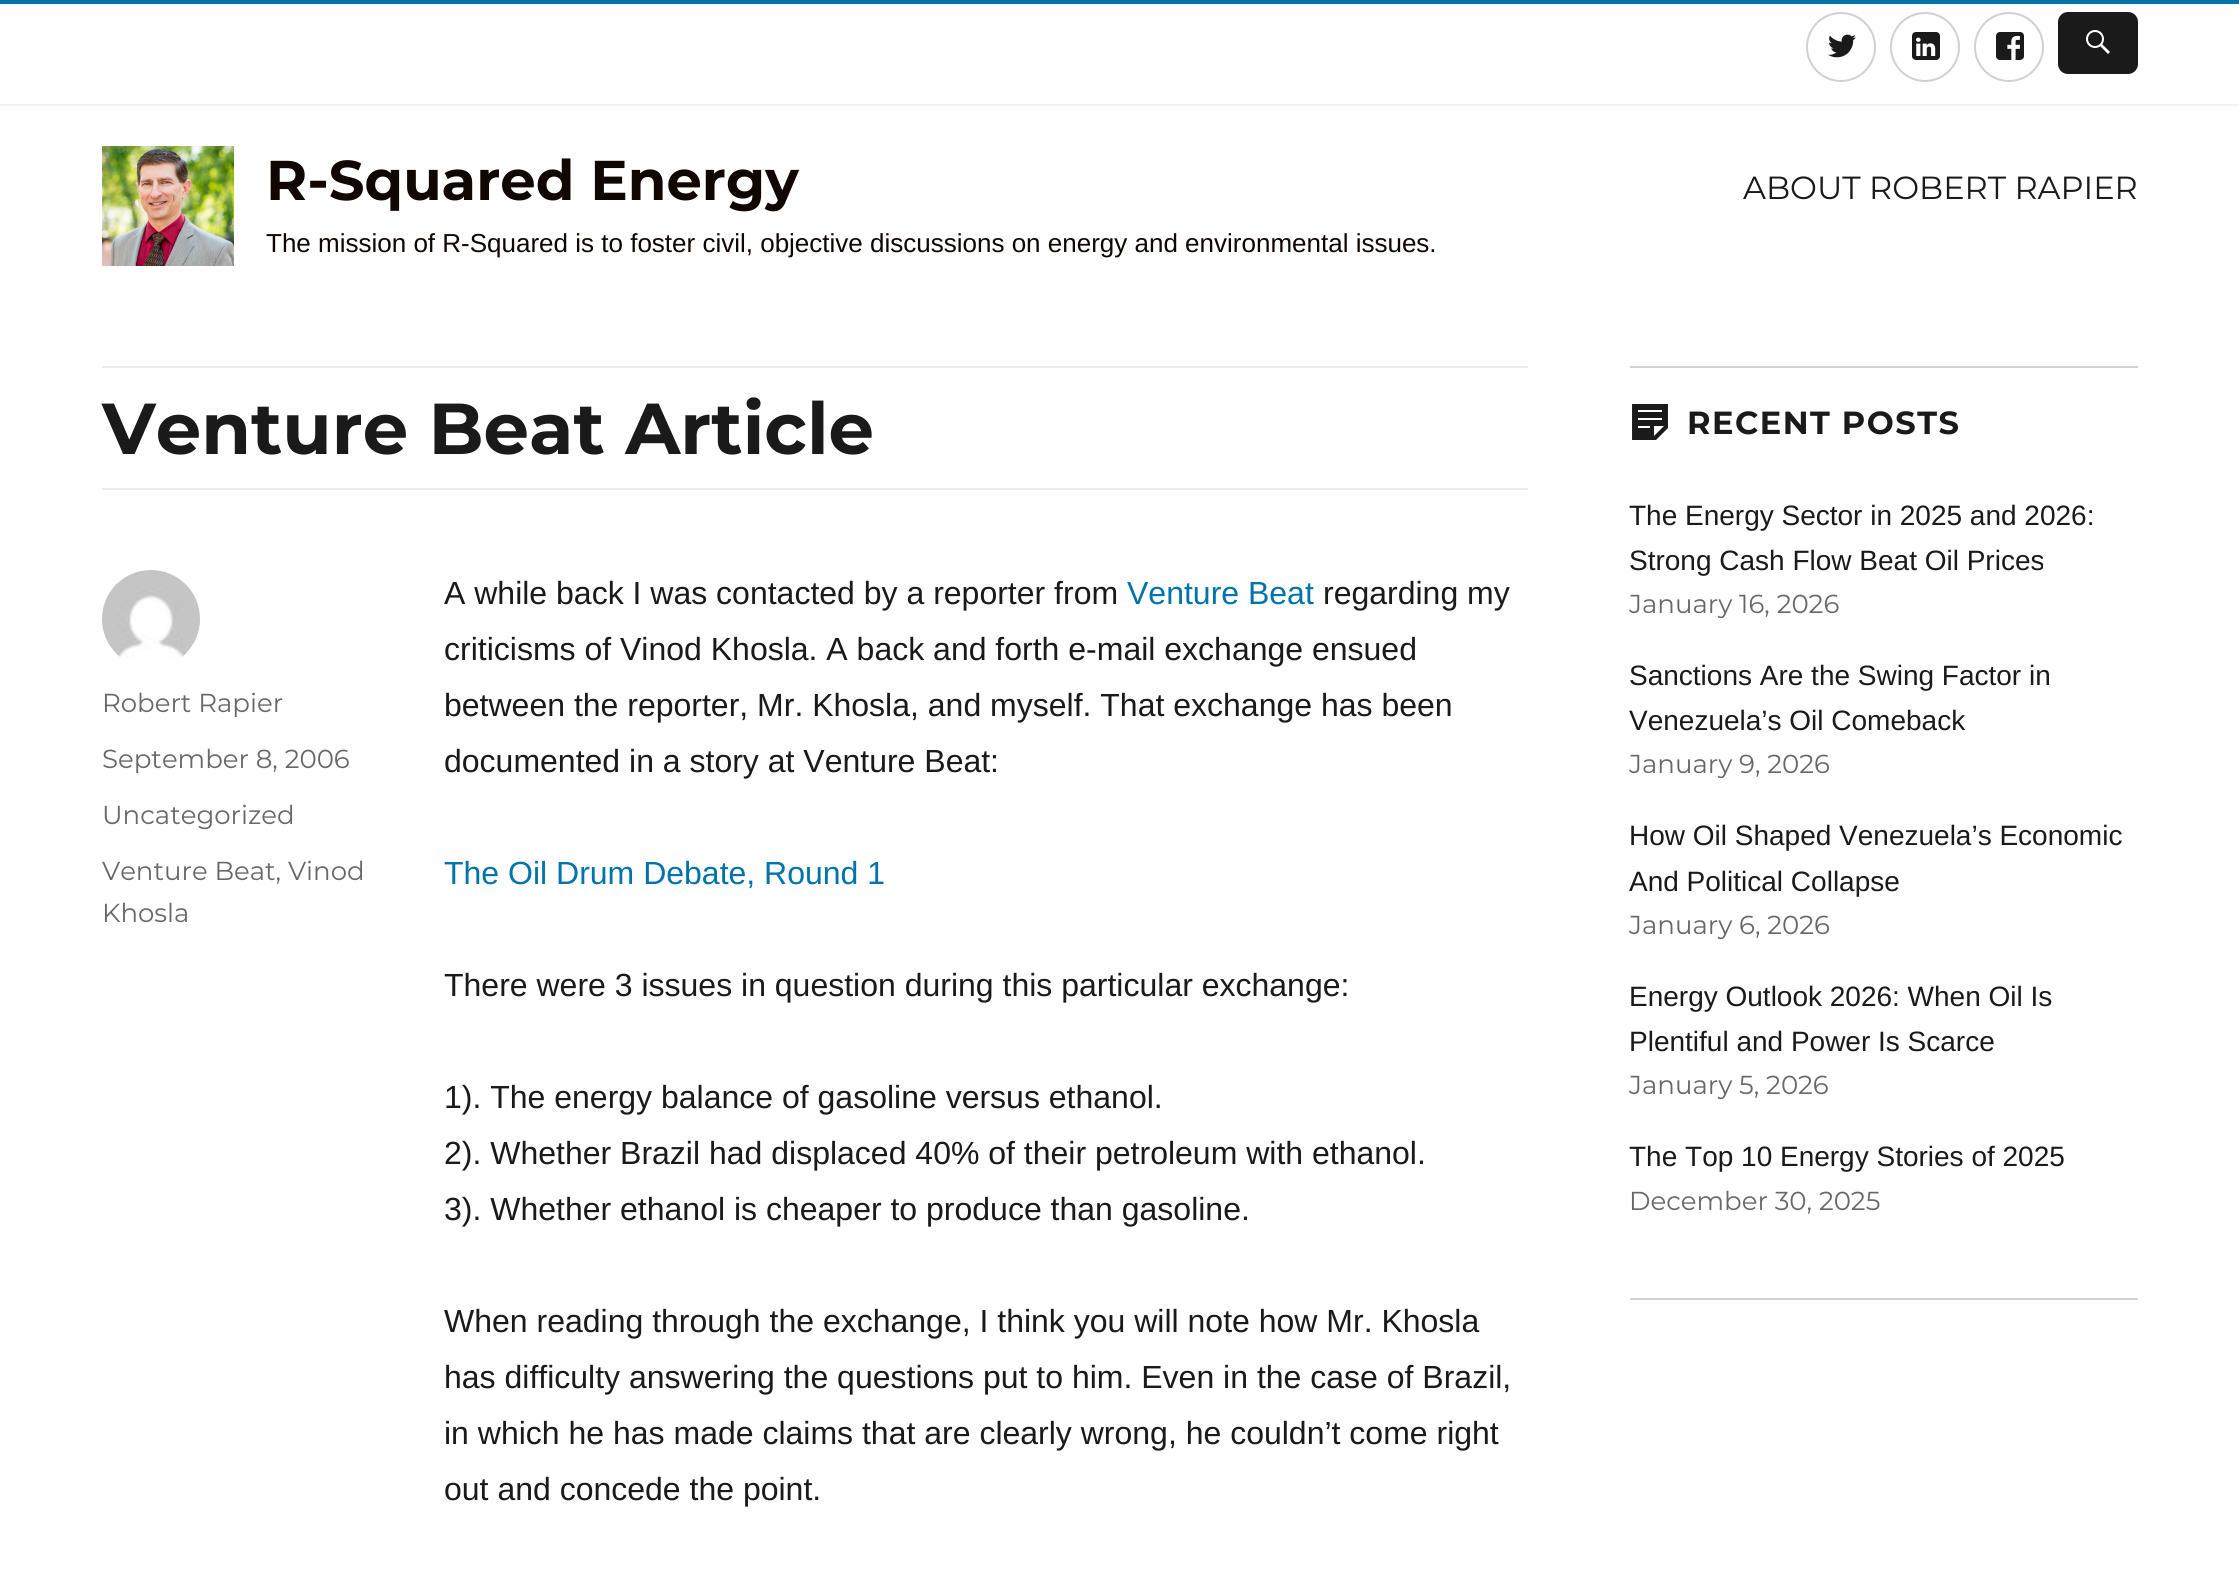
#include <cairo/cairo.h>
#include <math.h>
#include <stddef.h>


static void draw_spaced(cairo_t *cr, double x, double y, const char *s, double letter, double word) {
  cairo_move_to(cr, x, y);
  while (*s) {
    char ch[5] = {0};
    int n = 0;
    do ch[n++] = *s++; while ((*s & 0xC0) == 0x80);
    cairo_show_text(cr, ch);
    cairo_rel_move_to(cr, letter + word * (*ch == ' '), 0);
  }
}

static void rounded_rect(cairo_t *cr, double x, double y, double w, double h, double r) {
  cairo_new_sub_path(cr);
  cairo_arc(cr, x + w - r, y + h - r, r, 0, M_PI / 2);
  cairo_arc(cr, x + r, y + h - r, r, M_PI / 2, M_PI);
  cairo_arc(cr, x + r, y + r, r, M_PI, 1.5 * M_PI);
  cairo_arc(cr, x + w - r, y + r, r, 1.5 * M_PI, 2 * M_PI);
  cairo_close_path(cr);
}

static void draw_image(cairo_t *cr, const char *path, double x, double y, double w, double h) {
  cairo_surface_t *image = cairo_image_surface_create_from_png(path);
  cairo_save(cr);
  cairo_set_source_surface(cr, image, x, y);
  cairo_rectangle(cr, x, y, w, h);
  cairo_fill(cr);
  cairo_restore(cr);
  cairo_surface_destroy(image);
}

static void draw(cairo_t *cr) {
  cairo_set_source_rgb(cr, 1, 1, 1);
  cairo_paint(cr);
  cairo_set_source_rgb(cr, 0, 115 / 255.0, 170 / 255.0);
  cairo_rectangle(cr, 0, 0, 2239, 4);
  cairo_fill(cr);
  cairo_set_source_rgb(cr, 242 / 255.0, 242 / 255.0, 242 / 255.0);
  cairo_rectangle(cr, 0, 104, 2239, 2);
  cairo_fill(cr);
  cairo_arc(cr, 1841, 47, 34, 0, 2 * M_PI);
  cairo_set_source_rgb(cr, 209 / 255.0, 209 / 255.0, 209 / 255.0);
  cairo_stroke(cr);
  draw_image(cr, "images/1.png", 1828, 34, 28, 24);
  cairo_arc(cr, 1925, 47, 34, 0, 2 * M_PI);
  cairo_stroke(cr);
  draw_image(cr, "images/2.png", 1912, 32, 28, 28);
  cairo_arc(cr, 2009, 47, 34, 0, 2 * M_PI);
  cairo_stroke(cr);
  draw_image(cr, "images/3.png", 1996, 32, 28, 28);
  cairo_set_source_rgb(cr, 26 / 255.0, 26 / 255.0, 26 / 255.0);
  rounded_rect(cr, 2058, 12, 80, 62, 10);
  cairo_fill(cr);
  draw_image(cr, "images/4.png", 2086, 30, 24, 24);
  draw_image(cr, "images/5.png", 102, 146, 132, 120);
  cairo_set_source_rgb(cr, 237 / 255.0, 237 / 255.0, 237 / 255.0);
  cairo_rectangle(cr, 102, 366, 1426, 2);
  cairo_fill(cr);
  cairo_rectangle(cr, 102, 488, 1426, 2);
  cairo_fill(cr);
  draw_image(cr, "images/6.png", 102, 570, 98, 89);
  cairo_set_source_rgb(cr, 209 / 255.0, 209 / 255.0, 209 / 255.0);
  cairo_rectangle(cr, 1630, 366, 508, 2);
  cairo_fill(cr);
  draw_image(cr, "images/7.png", 1632, 404, 36, 36);
  cairo_rectangle(cr, 1630, 1298, 508, 2);
  cairo_fill(cr);
  cairo_select_font_face(cr, "Montserrat", CAIRO_FONT_SLANT_NORMAL, CAIRO_FONT_WEIGHT_BOLD);
  cairo_set_font_size(cr, 56);
  cairo_set_source_rgb(cr, 17 / 255.0, 7 / 255.0, 2 / 255.0);
  cairo_move_to(cr, 266, 200);
  cairo_show_text(cr, "R-Squared Energy");
  cairo_select_font_face(cr, "Arimo", CAIRO_FONT_SLANT_NORMAL, CAIRO_FONT_WEIGHT_NORMAL);
  cairo_set_font_size(cr, 26);
  cairo_move_to(cr, 266, 252);
  cairo_show_text(cr, "The mission of R-Squared is to foster civil, objective discussions on energy and environmental issues.");
  cairo_select_font_face(cr, "Montserrat", CAIRO_FONT_SLANT_NORMAL, CAIRO_FONT_WEIGHT_NORMAL);
  cairo_set_font_size(cr, 32);
  cairo_set_source_rgb(cr, 26 / 255.0, 26 / 255.0, 26 / 255.0);
  cairo_move_to(cr, 1743, 199);
  cairo_show_text(cr, "ABOUT ROBERT RAPIER");
  cairo_select_font_face(cr, "Montserrat", CAIRO_FONT_SLANT_NORMAL, CAIRO_FONT_WEIGHT_BOLD);
  cairo_set_font_size(cr, 72);
  cairo_move_to(cr, 102, 454);
  cairo_show_text(cr, "Venture Beat Article");
  cairo_select_font_face(cr, "Montserrat", CAIRO_FONT_SLANT_NORMAL, CAIRO_FONT_WEIGHT_NORMAL);
  cairo_set_font_size(cr, 26);
  cairo_set_source_rgb(cr, 104 / 255.0, 104 / 255.0, 104 / 255.0);
  cairo_move_to(cr, 102, 712);
  cairo_show_text(cr, "Robert Rapier");
  cairo_move_to(cr, 102, 768);
  cairo_show_text(cr, "September 8, 2006");
  cairo_move_to(cr, 102, 824);
  cairo_show_text(cr, "Uncategorized");
  cairo_move_to(cr, 102, 880);
  cairo_show_text(cr, "Venture Beat, Vinod");
  cairo_move_to(cr, 102, 922);
  cairo_show_text(cr, "Khosla");
  cairo_select_font_face(cr, "Arimo", CAIRO_FONT_SLANT_NORMAL, CAIRO_FONT_WEIGHT_NORMAL);
  cairo_set_font_size(cr, 32);
  cairo_set_source_rgb(cr, 26 / 255.0, 26 / 255.0, 26 / 255.0);
  cairo_move_to(cr, 444, 604);
  cairo_show_text(cr, "A while back I was contacted by a reporter from");
  cairo_set_source_rgb(cr, 0, 115 / 255.0, 170 / 255.0);
  cairo_move_to(cr, 1127, 604);
  cairo_show_text(cr, "Venture Beat");
  cairo_set_source_rgb(cr, 26 / 255.0, 26 / 255.0, 26 / 255.0);
  cairo_move_to(cr, 1323, 604);
  cairo_show_text(cr, "regarding my");
  cairo_move_to(cr, 444, 660);
  cairo_show_text(cr, "criticisms of Vinod Khosla. A back and forth e-mail exchange ensued");
  cairo_move_to(cr, 444, 716);
  cairo_show_text(cr, "between the reporter, Mr. Khosla, and myself. That exchange has been");
  cairo_move_to(cr, 444, 772);
  cairo_show_text(cr, "documented in a story at Venture Beat:");
  cairo_set_source_rgb(cr, 0, 115 / 255.0, 170 / 255.0);
  cairo_move_to(cr, 444, 884);
  cairo_show_text(cr, "The Oil Drum Debate, Round 1");
  cairo_set_source_rgb(cr, 26 / 255.0, 26 / 255.0, 26 / 255.0);
  cairo_move_to(cr, 444, 996);
  cairo_show_text(cr, "There were 3 issues in question during this particular exchange:");
  cairo_move_to(cr, 444, 1108);
  cairo_show_text(cr, "1). The energy balance of gasoline versus ethanol.");
  cairo_move_to(cr, 444, 1164);
  cairo_show_text(cr, "2). Whether Brazil had displaced 40% of their petroleum with ethanol.");
  cairo_move_to(cr, 444, 1220);
  cairo_show_text(cr, "3). Whether ethanol is cheaper to produce than gasoline.");
  cairo_move_to(cr, 444, 1332);
  cairo_show_text(cr, "When reading through the exchange, I think you will note how Mr. Khosla");
  cairo_move_to(cr, 444, 1388);
  cairo_show_text(cr, "has difficulty answering the questions put to him. Even in the case of Brazil,");
  cairo_move_to(cr, 444, 1444);
  cairo_show_text(cr, "in which he has made claims that are clearly wrong, he couldn’t come right");
  cairo_move_to(cr, 444, 1500);
  cairo_show_text(cr, "out and concede the point.");
  cairo_select_font_face(cr, "Montserrat", CAIRO_FONT_SLANT_NORMAL, CAIRO_FONT_WEIGHT_BOLD);
  draw_spaced(cr, 1687, 434, "RECENT POSTS", 1.5, 0);
  cairo_select_font_face(cr, "Arimo", CAIRO_FONT_SLANT_NORMAL, CAIRO_FONT_WEIGHT_NORMAL);
  cairo_set_font_size(cr, 28);
  cairo_move_to(cr, 1629, 525);
  cairo_show_text(cr, "The Energy Sector in 2025 and 2026:");
  cairo_move_to(cr, 1629, 570);
  cairo_show_text(cr, "Strong Cash Flow Beat Oil Prices");
  cairo_select_font_face(cr, "Montserrat", CAIRO_FONT_SLANT_NORMAL, CAIRO_FONT_WEIGHT_NORMAL);
  cairo_set_font_size(cr, 26);
  cairo_set_source_rgb(cr, 104 / 255.0, 104 / 255.0, 104 / 255.0);
  cairo_move_to(cr, 1629, 613);
  cairo_show_text(cr, "January 16, 2026");
  cairo_select_font_face(cr, "Arimo", CAIRO_FONT_SLANT_NORMAL, CAIRO_FONT_WEIGHT_NORMAL);
  cairo_set_font_size(cr, 28);
  cairo_set_source_rgb(cr, 26 / 255.0, 26 / 255.0, 26 / 255.0);
  cairo_move_to(cr, 1629, 685);
  cairo_show_text(cr, "Sanctions Are the Swing Factor in");
  cairo_move_to(cr, 1629, 730);
  cairo_show_text(cr, "Venezuela’s Oil Comeback");
  cairo_select_font_face(cr, "Montserrat", CAIRO_FONT_SLANT_NORMAL, CAIRO_FONT_WEIGHT_NORMAL);
  cairo_set_font_size(cr, 26);
  cairo_set_source_rgb(cr, 104 / 255.0, 104 / 255.0, 104 / 255.0);
  cairo_move_to(cr, 1629, 773);
  cairo_show_text(cr, "January 9, 2026");
  cairo_select_font_face(cr, "Arimo", CAIRO_FONT_SLANT_NORMAL, CAIRO_FONT_WEIGHT_NORMAL);
  cairo_set_font_size(cr, 28);
  cairo_set_source_rgb(cr, 26 / 255.0, 26 / 255.0, 26 / 255.0);
  cairo_move_to(cr, 1629, 845);
  cairo_show_text(cr, "How Oil Shaped Venezuela’s Economic");
  cairo_move_to(cr, 1629, 891);
  cairo_show_text(cr, "And Political Collapse");
  cairo_select_font_face(cr, "Montserrat", CAIRO_FONT_SLANT_NORMAL, CAIRO_FONT_WEIGHT_NORMAL);
  cairo_set_font_size(cr, 26);
  cairo_set_source_rgb(cr, 104 / 255.0, 104 / 255.0, 104 / 255.0);
  cairo_move_to(cr, 1629, 934);
  cairo_show_text(cr, "January 6, 2026");
  cairo_select_font_face(cr, "Arimo", CAIRO_FONT_SLANT_NORMAL, CAIRO_FONT_WEIGHT_NORMAL);
  cairo_set_font_size(cr, 28);
  cairo_set_source_rgb(cr, 26 / 255.0, 26 / 255.0, 26 / 255.0);
  cairo_move_to(cr, 1629, 1006);
  cairo_show_text(cr, "Energy Outlook 2026: When Oil Is");
  cairo_move_to(cr, 1629, 1051);
  cairo_show_text(cr, "Plentiful and Power Is Scarce");
  cairo_select_font_face(cr, "Montserrat", CAIRO_FONT_SLANT_NORMAL, CAIRO_FONT_WEIGHT_NORMAL);
  cairo_set_font_size(cr, 26);
  cairo_set_source_rgb(cr, 104 / 255.0, 104 / 255.0, 104 / 255.0);
  cairo_move_to(cr, 1629, 1094);
  cairo_show_text(cr, "January 5, 2026");
  cairo_select_font_face(cr, "Arimo", CAIRO_FONT_SLANT_NORMAL, CAIRO_FONT_WEIGHT_NORMAL);
  cairo_set_font_size(cr, 28);
  cairo_set_source_rgb(cr, 26 / 255.0, 26 / 255.0, 26 / 255.0);
  cairo_move_to(cr, 1629, 1166);
  cairo_show_text(cr, "The Top 10 Energy Stories of 2025");
  cairo_select_font_face(cr, "Montserrat", CAIRO_FONT_SLANT_NORMAL, CAIRO_FONT_WEIGHT_NORMAL);
  cairo_set_font_size(cr, 26);
  cairo_set_source_rgb(cr, 104 / 255.0, 104 / 255.0, 104 / 255.0);
  cairo_move_to(cr, 1629, 1210);
  cairo_show_text(cr, "December 30, 2025");
}

int main(void) {
  cairo_surface_t *surface = cairo_image_surface_create(CAIRO_FORMAT_RGB24, 2239, 1571);
  cairo_t *cr = cairo_create(surface);
  cairo_font_options_t *options = cairo_font_options_create();
  cairo_font_options_set_hint_metrics(options, CAIRO_HINT_METRICS_OFF);
  cairo_font_options_set_hint_style(options, CAIRO_HINT_STYLE_NONE);
  cairo_set_font_options(cr, options);
  cairo_set_miter_limit(cr, 4);
  draw(cr);
  cairo_surface_write_to_png(surface, "out.png");
  cairo_font_options_destroy(options);
  cairo_destroy(cr);
  cairo_surface_destroy(surface);
  return 0;
}
